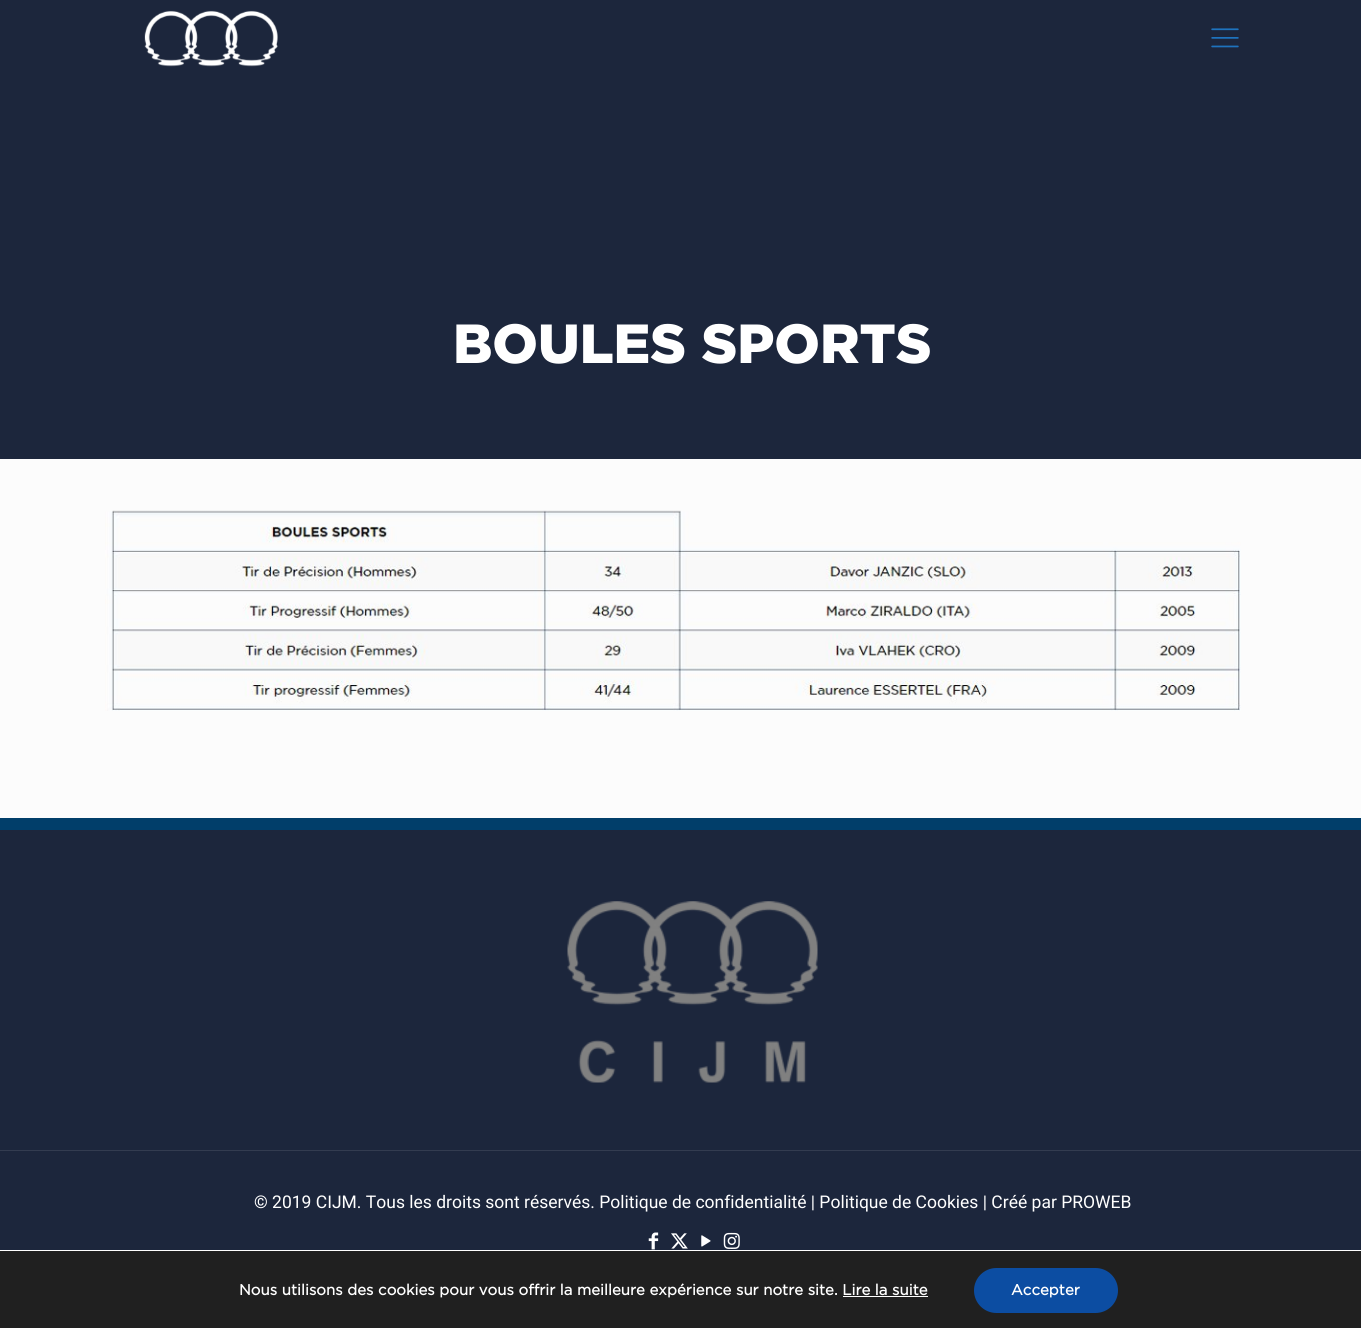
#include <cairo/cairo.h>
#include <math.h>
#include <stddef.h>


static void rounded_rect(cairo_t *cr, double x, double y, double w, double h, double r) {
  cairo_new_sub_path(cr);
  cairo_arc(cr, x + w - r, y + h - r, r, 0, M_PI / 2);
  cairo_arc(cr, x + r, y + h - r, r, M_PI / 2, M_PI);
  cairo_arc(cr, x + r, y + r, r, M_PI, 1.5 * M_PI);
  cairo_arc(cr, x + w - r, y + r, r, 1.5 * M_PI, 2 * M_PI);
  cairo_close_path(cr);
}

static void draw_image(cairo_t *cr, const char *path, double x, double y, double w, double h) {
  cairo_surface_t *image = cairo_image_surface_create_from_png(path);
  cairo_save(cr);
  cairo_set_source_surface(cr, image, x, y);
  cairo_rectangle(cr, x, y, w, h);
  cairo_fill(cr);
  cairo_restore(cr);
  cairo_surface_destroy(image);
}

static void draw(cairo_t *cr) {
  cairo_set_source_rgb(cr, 252 / 255.0, 252 / 255.0, 252 / 255.0);
  cairo_paint(cr);
  cairo_set_source_rgb(cr, 28 / 255.0, 38 / 255.0, 60 / 255.0);
  cairo_rectangle(cr, 0, 0, 1361, 459);
  cairo_fill(cr);
  draw_image(cr, "images/1.png", 144, 10, 134, 57);
  draw_image(cr, "images/2.png", 1211, 28, 28, 20);
  draw_image(cr, "images/3.png", 105, 510, 1136, 201);
  cairo_rectangle(cr, 0, 830, 1361, 420);
  cairo_fill(cr);
  cairo_set_source_rgb(cr, 1 / 255.0, 62 / 255.0, 106 / 255.0);
  cairo_rectangle(cr, 0, 818, 1361, 12);
  cairo_fill(cr);
  draw_image(cr, "images/4.png", 567, 901, 251, 182);
  cairo_set_source_rgb(cr, 51 / 255.0, 60 / 255.0, 80 / 255.0);
  cairo_rectangle(cr, 0, 1150, 1361, 1);
  cairo_fill(cr);
  draw_image(cr, "images/5.png", 648, 1232, 11, 18);
  draw_image(cr, "images/6.png", 671, 1233, 17, 16);
  draw_image(cr, "images/7.png", 701, 1235, 10, 12);
  draw_image(cr, "images/8.png", 723, 1232, 17, 17);
  cairo_set_source_rgb(cr, 32 / 255.0, 32 / 255.0, 32 / 255.0);
  cairo_rectangle(cr, 0, 1251, 1361, 77);
  cairo_fill(cr);
  cairo_set_source_rgb(cr, 1, 1, 1);
  cairo_rectangle(cr, 0, 1250, 1361, 1);
  cairo_fill(cr);
  cairo_rectangle(cr, 843, 1296, 85, 1);
  cairo_fill(cr);
  cairo_set_source_rgb(cr, 12 / 255.0, 77 / 255.0, 162 / 255.0);
  rounded_rect(cr, 974, 1268, 144, 45, 22.5);
  cairo_fill(cr);
  cairo_select_font_face(cr, "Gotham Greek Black", CAIRO_FONT_SLANT_NORMAL, CAIRO_FONT_WEIGHT_NORMAL);
  cairo_set_font_size(cr, 55);
  cairo_set_source_rgb(cr, 1, 1, 1);
  cairo_move_to(cr, 453, 363);
  cairo_show_text(cr, "BOULES SPORTS");
  cairo_select_font_face(cr, "Roboto", CAIRO_FONT_SLANT_NORMAL, CAIRO_FONT_WEIGHT_NORMAL);
  cairo_set_font_size(cr, 17.5);
  cairo_move_to(cr, 254, 1208);
  cairo_show_text(cr, "© 2019 CIJM. Tous les droits sont réservés. Politique de confidentialité | Politique de Cookies | Créé par PROWEB");
  cairo_select_font_face(cr, "Gotham Greek", CAIRO_FONT_SLANT_NORMAL, CAIRO_FONT_WEIGHT_BOLD);
  cairo_set_font_size(cr, 15);
  cairo_move_to(cr, 239, 1295);
  cairo_show_text(cr, "Nous utilisons des cookies pour vous offrir la meilleure expérience sur notre site. Lire la suite");
  cairo_move_to(cr, 1011, 1295);
  cairo_show_text(cr, "Accepter");
}

int main(void) {
  cairo_surface_t *surface = cairo_image_surface_create(CAIRO_FORMAT_RGB24, 1361, 1328);
  cairo_t *cr = cairo_create(surface);
  cairo_font_options_t *options = cairo_font_options_create();
  cairo_font_options_set_hint_metrics(options, CAIRO_HINT_METRICS_OFF);
  cairo_font_options_set_hint_style(options, CAIRO_HINT_STYLE_NONE);
  cairo_set_font_options(cr, options);
  cairo_set_miter_limit(cr, 4);
  draw(cr);
  cairo_surface_write_to_png(surface, "out.png");
  cairo_font_options_destroy(options);
  cairo_destroy(cr);
  cairo_surface_destroy(surface);
  return 0;
}
